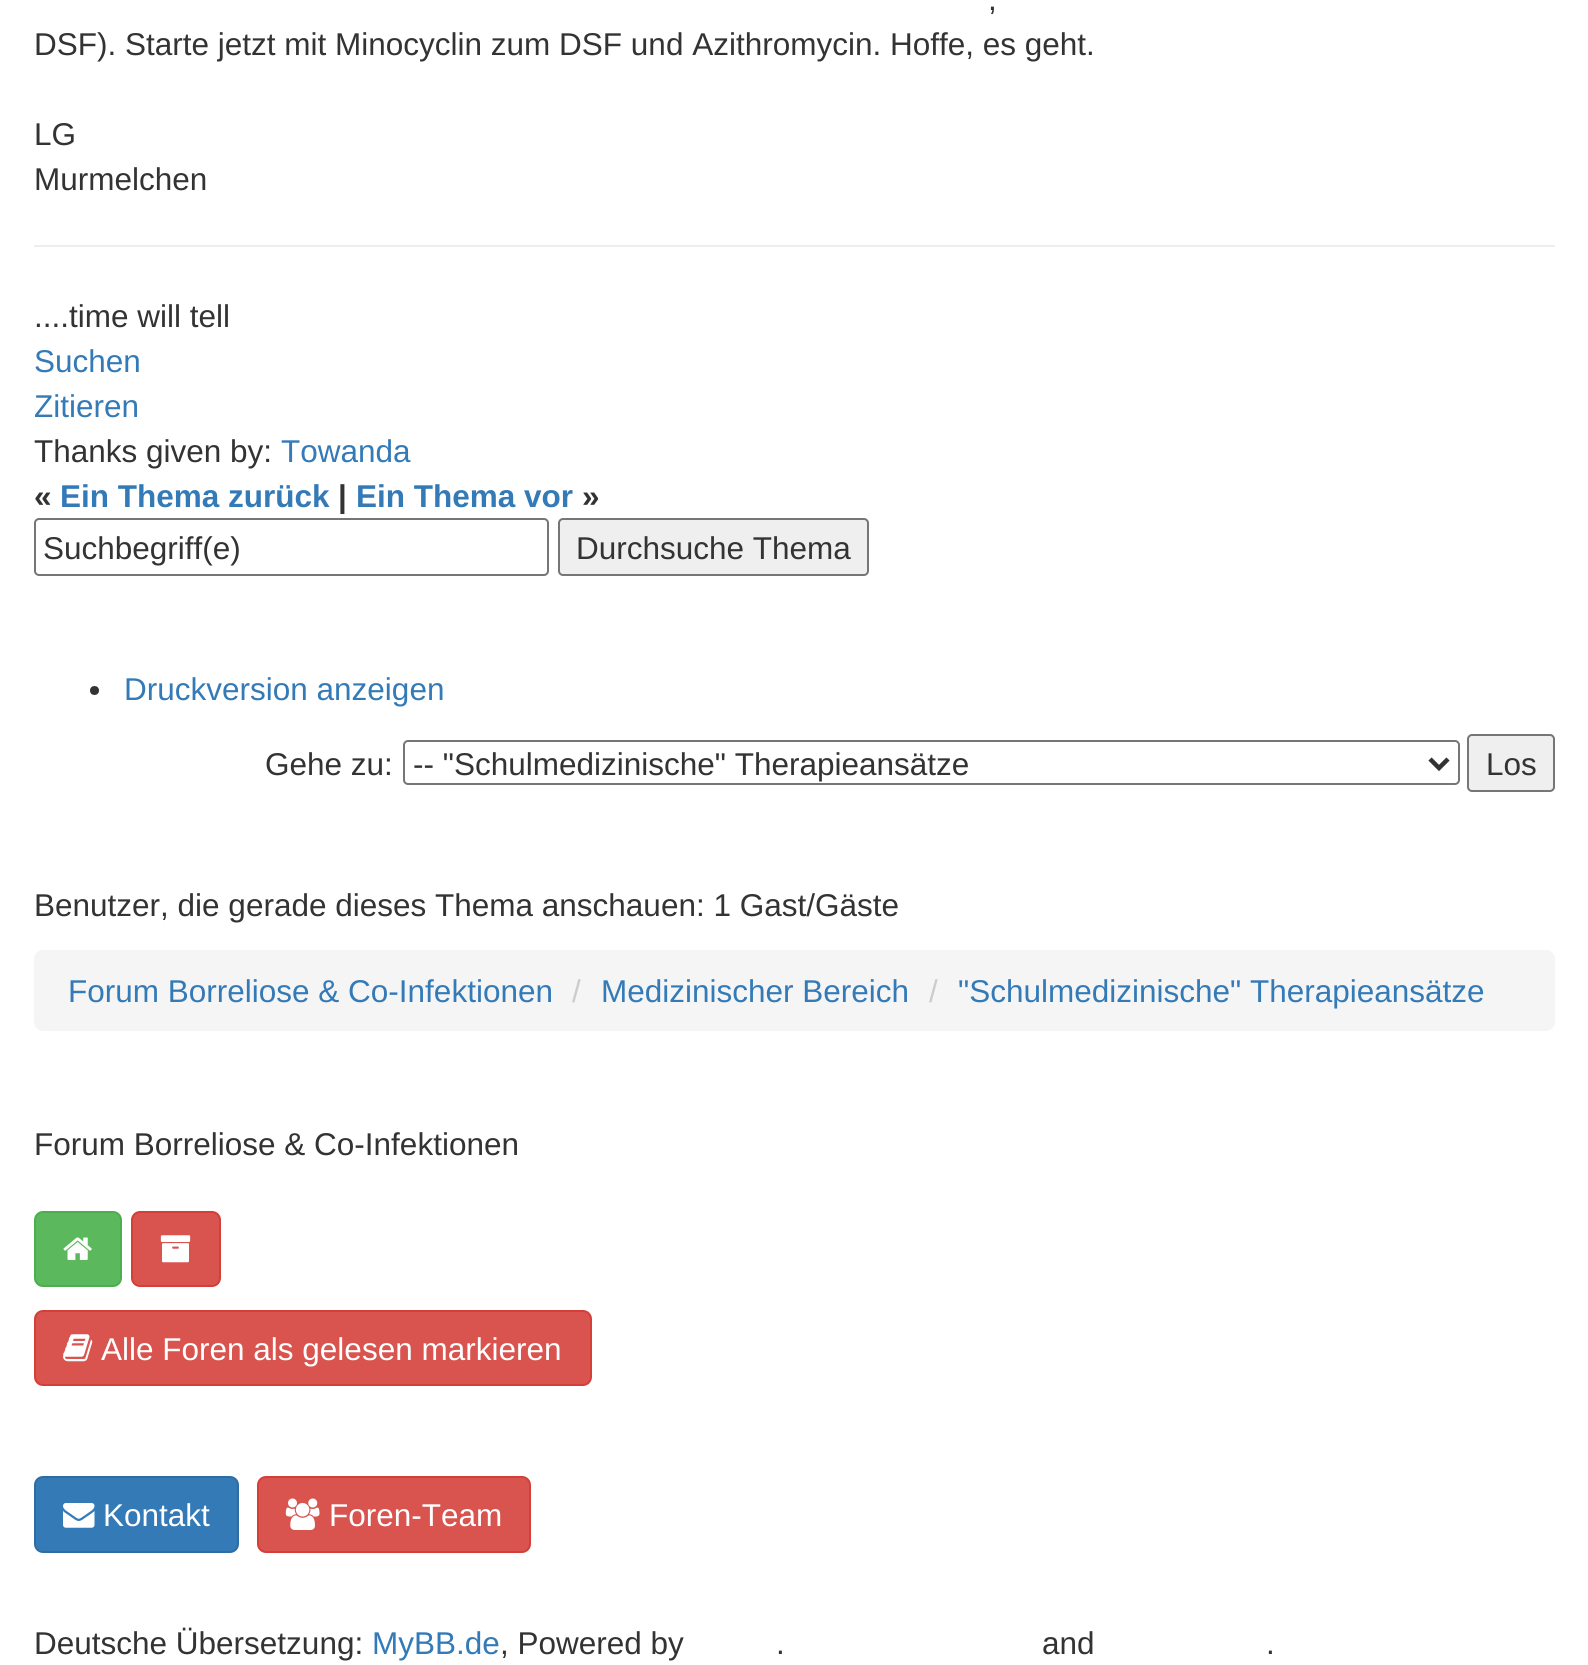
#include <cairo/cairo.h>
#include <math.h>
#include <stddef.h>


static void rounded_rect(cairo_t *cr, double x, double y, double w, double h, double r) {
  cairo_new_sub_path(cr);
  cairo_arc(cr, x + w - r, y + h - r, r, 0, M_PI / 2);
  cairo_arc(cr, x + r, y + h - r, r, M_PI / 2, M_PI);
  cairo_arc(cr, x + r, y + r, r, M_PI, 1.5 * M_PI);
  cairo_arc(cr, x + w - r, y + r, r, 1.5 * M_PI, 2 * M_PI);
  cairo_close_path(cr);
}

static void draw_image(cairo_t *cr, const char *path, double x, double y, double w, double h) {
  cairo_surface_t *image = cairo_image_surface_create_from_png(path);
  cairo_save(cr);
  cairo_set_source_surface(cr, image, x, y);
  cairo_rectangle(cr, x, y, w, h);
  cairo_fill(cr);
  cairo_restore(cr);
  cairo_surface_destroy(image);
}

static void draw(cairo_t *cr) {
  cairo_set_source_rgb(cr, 1, 1, 1);
  cairo_paint(cr);
  cairo_set_source_rgb(cr, 238 / 255.0, 238 / 255.0, 238 / 255.0);
  cairo_rectangle(cr, 34, 245, 1521, 2);
  cairo_fill(cr);
  rounded_rect(cr, 35, 519, 513, 56, 4);
  cairo_set_source_rgb(cr, 118 / 255.0, 118 / 255.0, 118 / 255.0);
  cairo_stroke(cr);
  cairo_set_source_rgb(cr, 239 / 255.0, 239 / 255.0, 239 / 255.0);
  rounded_rect(cr, 559, 519, 309, 56, 4);
  cairo_fill_preserve(cr);
  cairo_set_source_rgb(cr, 118 / 255.0, 118 / 255.0, 118 / 255.0);
  cairo_stroke(cr);
  cairo_set_source_rgb(cr, 51 / 255.0, 51 / 255.0, 51 / 255.0);
  cairo_arc(cr, 94.5, 690.5, 4.5, 0, 2 * M_PI);
  cairo_fill(cr);
  rounded_rect(cr, 404, 741, 1055, 43, 4);
  cairo_set_source_rgb(cr, 118 / 255.0, 118 / 255.0, 118 / 255.0);
  cairo_stroke(cr);
  cairo_new_path(cr);
  cairo_move_to(cr, 1430, 759);
  cairo_line_to(cr, 1439, 768);
  cairo_line_to(cr, 1448, 759);
  cairo_set_source_rgb(cr, 51 / 255.0, 51 / 255.0, 51 / 255.0);
  cairo_set_line_width(cr, 4.5);
  cairo_stroke(cr);
  cairo_set_source_rgb(cr, 239 / 255.0, 239 / 255.0, 239 / 255.0);
  rounded_rect(cr, 1468, 735, 86, 56, 4);
  cairo_fill_preserve(cr);
  cairo_set_source_rgb(cr, 118 / 255.0, 118 / 255.0, 118 / 255.0);
  cairo_set_line_width(cr, 2);
  cairo_stroke(cr);
  cairo_set_source_rgb(cr, 245 / 255.0, 245 / 255.0, 245 / 255.0);
  rounded_rect(cr, 34, 950, 1521, 81, 9);
  cairo_fill(cr);
  cairo_set_source_rgb(cr, 92 / 255.0, 184 / 255.0, 92 / 255.0);
  rounded_rect(cr, 35, 1212, 86, 74, 8);
  cairo_fill_preserve(cr);
  cairo_set_source_rgb(cr, 76 / 255.0, 174 / 255.0, 76 / 255.0);
  cairo_stroke(cr);
  draw_image(cr, "images/1.png", 63, 1237, 29, 23);
  cairo_set_source_rgb(cr, 217 / 255.0, 83 / 255.0, 79 / 255.0);
  rounded_rect(cr, 132, 1212, 88, 74, 8);
  cairo_fill_preserve(cr);
  cairo_set_source_rgb(cr, 212 / 255.0, 63 / 255.0, 58 / 255.0);
  cairo_stroke(cr);
  draw_image(cr, "images/2.png", 160, 1235, 31, 28);
  cairo_set_source_rgb(cr, 217 / 255.0, 83 / 255.0, 79 / 255.0);
  rounded_rect(cr, 35, 1311, 556, 74, 8);
  cairo_fill_preserve(cr);
  cairo_set_source_rgb(cr, 212 / 255.0, 63 / 255.0, 58 / 255.0);
  cairo_stroke(cr);
  draw_image(cr, "images/3.png", 63, 1334, 30, 28);
  cairo_set_source_rgb(cr, 51 / 255.0, 122 / 255.0, 183 / 255.0);
  rounded_rect(cr, 35, 1477, 203, 75, 8);
  cairo_fill_preserve(cr);
  cairo_set_source_rgb(cr, 46 / 255.0, 109 / 255.0, 164 / 255.0);
  cairo_stroke(cr);
  draw_image(cr, "images/4.png", 63, 1503, 32, 25);
  cairo_set_source_rgb(cr, 217 / 255.0, 83 / 255.0, 79 / 255.0);
  rounded_rect(cr, 258, 1477, 272, 75, 8);
  cairo_fill_preserve(cr);
  cairo_set_source_rgb(cr, 212 / 255.0, 63 / 255.0, 58 / 255.0);
  cairo_stroke(cr);
  draw_image(cr, "images/5.png", 285, 1498, 35, 32);
  cairo_select_font_face(cr, "Liberation Sans", CAIRO_FONT_SLANT_NORMAL, CAIRO_FONT_WEIGHT_NORMAL);
  cairo_set_font_size(cr, 31.5);
  cairo_set_source_rgb(cr, 51 / 255.0, 51 / 255.0, 51 / 255.0);
  cairo_move_to(cr, 988, 10);
  cairo_show_text(cr, ",");
  cairo_move_to(cr, 34, 55);
  cairo_show_text(cr, "DSF). Starte jetzt mit Minocyclin zum DSF und Azithromycin. Hoffe, es geht.");
  cairo_move_to(cr, 34, 145);
  cairo_show_text(cr, "LG");
  cairo_move_to(cr, 34, 190);
  cairo_show_text(cr, "Murmelchen");
  cairo_move_to(cr, 34, 327);
  cairo_show_text(cr, "....time will tell");
  cairo_set_source_rgb(cr, 51 / 255.0, 122 / 255.0, 183 / 255.0);
  cairo_move_to(cr, 34, 372);
  cairo_show_text(cr, "Suchen");
  cairo_move_to(cr, 34, 417);
  cairo_show_text(cr, "Zitieren");
  cairo_set_source_rgb(cr, 51 / 255.0, 51 / 255.0, 51 / 255.0);
  cairo_move_to(cr, 34, 462);
  cairo_show_text(cr, "Thanks given by:");
  cairo_set_source_rgb(cr, 51 / 255.0, 122 / 255.0, 183 / 255.0);
  cairo_move_to(cr, 281, 462);
  cairo_show_text(cr, "Towanda");
  cairo_select_font_face(cr, "Liberation Sans", CAIRO_FONT_SLANT_NORMAL, CAIRO_FONT_WEIGHT_BOLD);
  cairo_set_source_rgb(cr, 51 / 255.0, 51 / 255.0, 51 / 255.0);
  cairo_move_to(cr, 34, 507);
  cairo_show_text(cr, "«");
  cairo_set_source_rgb(cr, 51 / 255.0, 122 / 255.0, 183 / 255.0);
  cairo_move_to(cr, 60, 507);
  cairo_show_text(cr, "Ein Thema zurück");
  cairo_set_source_rgb(cr, 51 / 255.0, 51 / 255.0, 51 / 255.0);
  cairo_move_to(cr, 338, 507);
  cairo_show_text(cr, "|");
  cairo_set_source_rgb(cr, 51 / 255.0, 122 / 255.0, 183 / 255.0);
  cairo_move_to(cr, 356, 507);
  cairo_show_text(cr, "Ein Thema vor");
  cairo_set_source_rgb(cr, 51 / 255.0, 51 / 255.0, 51 / 255.0);
  cairo_move_to(cr, 582, 507);
  cairo_show_text(cr, "»");
  cairo_select_font_face(cr, "Liberation Sans", CAIRO_FONT_SLANT_NORMAL, CAIRO_FONT_WEIGHT_NORMAL);
  cairo_move_to(cr, 43, 559);
  cairo_show_text(cr, "Suchbegriff(e)");
  cairo_move_to(cr, 576, 559);
  cairo_show_text(cr, "Durchsuche Thema");
  cairo_set_source_rgb(cr, 51 / 255.0, 122 / 255.0, 183 / 255.0);
  cairo_move_to(cr, 124, 700);
  cairo_show_text(cr, "Druckversion anzeigen");
  cairo_set_source_rgb(cr, 51 / 255.0, 51 / 255.0, 51 / 255.0);
  cairo_move_to(cr, 265, 775);
  cairo_show_text(cr, "Gehe zu:");
  cairo_move_to(cr, 413, 775);
  cairo_show_text(cr, "-- \"Schulmedizinische\" Therapieansätze");
  cairo_move_to(cr, 1486, 775);
  cairo_show_text(cr, "Los");
  cairo_move_to(cr, 34, 916);
  cairo_show_text(cr, "Benutzer, die gerade dieses Thema anschauen: 1 Gast/Gäste");
  cairo_set_source_rgb(cr, 51 / 255.0, 122 / 255.0, 183 / 255.0);
  cairo_move_to(cr, 68, 1002);
  cairo_show_text(cr, "Forum Borreliose & Co-Infektionen");
  cairo_set_source_rgb(cr, 204 / 255.0, 204 / 255.0, 204 / 255.0);
  cairo_move_to(cr, 572, 1002);
  cairo_show_text(cr, "/");
  cairo_set_source_rgb(cr, 51 / 255.0, 122 / 255.0, 183 / 255.0);
  cairo_move_to(cr, 601, 1002);
  cairo_show_text(cr, "Medizinischer Bereich");
  cairo_set_source_rgb(cr, 204 / 255.0, 204 / 255.0, 204 / 255.0);
  cairo_move_to(cr, 929, 1002);
  cairo_show_text(cr, "/");
  cairo_set_source_rgb(cr, 51 / 255.0, 122 / 255.0, 183 / 255.0);
  cairo_move_to(cr, 958, 1002);
  cairo_show_text(cr, "\"Schulmedizinische\" Therapieansätze");
  cairo_set_source_rgb(cr, 51 / 255.0, 51 / 255.0, 51 / 255.0);
  cairo_move_to(cr, 34, 1155);
  cairo_show_text(cr, "Forum Borreliose & Co-Infektionen");
  cairo_set_source_rgb(cr, 1, 1, 1);
  cairo_move_to(cr, 101, 1360);
  cairo_show_text(cr, "Alle Foren als gelesen markieren");
  cairo_move_to(cr, 103, 1526);
  cairo_show_text(cr, "Kontakt");
  cairo_move_to(cr, 329, 1526);
  cairo_show_text(cr, "Foren-Team");
  cairo_set_source_rgb(cr, 51 / 255.0, 51 / 255.0, 51 / 255.0);
  cairo_move_to(cr, 34, 1654);
  cairo_show_text(cr, "Deutsche Übersetzung:");
  cairo_set_source_rgb(cr, 51 / 255.0, 122 / 255.0, 183 / 255.0);
  cairo_move_to(cr, 372, 1654);
  cairo_show_text(cr, "MyBB.de");
  cairo_set_source_rgb(cr, 51 / 255.0, 51 / 255.0, 51 / 255.0);
  cairo_move_to(cr, 500, 1654);
  cairo_show_text(cr, ", Powered by");
  cairo_move_to(cr, 776, 1654);
  cairo_show_text(cr, ".");
  cairo_move_to(cr, 1042, 1654);
  cairo_show_text(cr, "and");
  cairo_move_to(cr, 1266, 1654);
  cairo_show_text(cr, ".");
}

int main(void) {
  cairo_surface_t *surface = cairo_image_surface_create(CAIRO_FORMAT_RGB24, 1588, 1665);
  cairo_t *cr = cairo_create(surface);
  cairo_font_options_t *options = cairo_font_options_create();
  cairo_font_options_set_hint_metrics(options, CAIRO_HINT_METRICS_OFF);
  cairo_font_options_set_hint_style(options, CAIRO_HINT_STYLE_NONE);
  cairo_set_font_options(cr, options);
  cairo_set_miter_limit(cr, 4);
  draw(cr);
  cairo_surface_write_to_png(surface, "out.png");
  cairo_font_options_destroy(options);
  cairo_destroy(cr);
  cairo_surface_destroy(surface);
  return 0;
}
